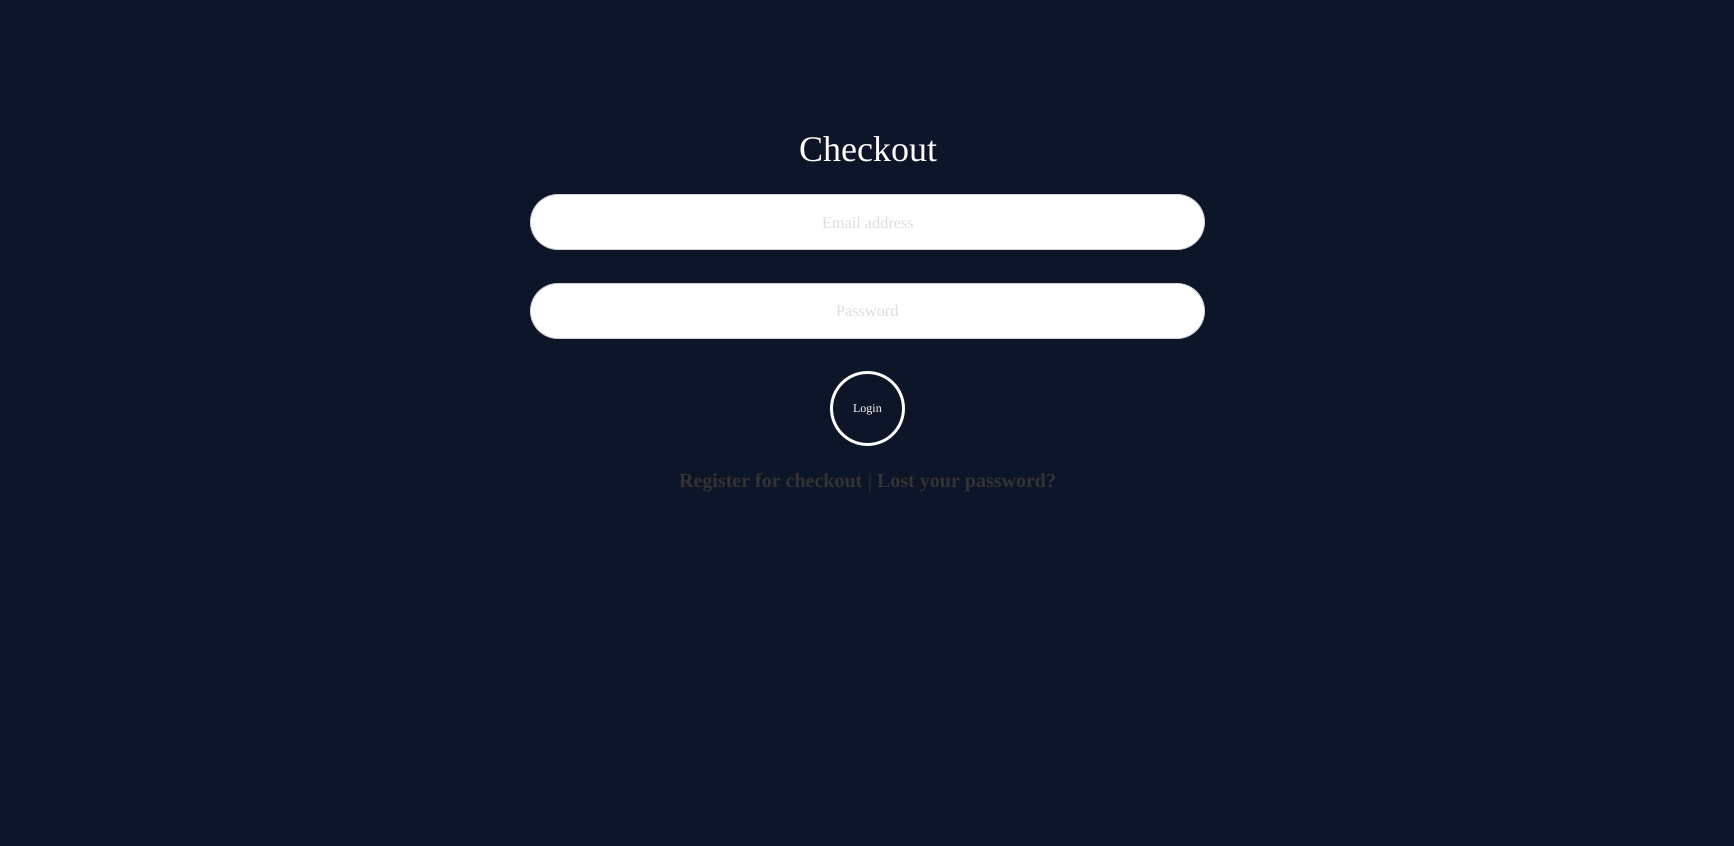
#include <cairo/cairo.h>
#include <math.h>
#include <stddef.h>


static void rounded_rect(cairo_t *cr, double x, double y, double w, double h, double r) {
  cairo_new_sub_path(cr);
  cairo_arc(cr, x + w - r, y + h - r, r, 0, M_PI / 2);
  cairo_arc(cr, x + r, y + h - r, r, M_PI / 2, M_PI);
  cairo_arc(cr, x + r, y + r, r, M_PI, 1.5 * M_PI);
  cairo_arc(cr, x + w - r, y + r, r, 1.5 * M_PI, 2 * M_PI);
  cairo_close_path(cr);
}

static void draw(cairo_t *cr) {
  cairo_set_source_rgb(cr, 13 / 255.0, 21 / 255.0, 40 / 255.0);
  cairo_paint(cr);
  cairo_set_source_rgb(cr, 1, 1, 1);
  rounded_rect(cr, 530.5, 194.5, 674, 55, 27.5);
  cairo_fill_preserve(cr);
  cairo_set_source_rgb(cr, 206 / 255.0, 212 / 255.0, 218 / 255.0);
  cairo_set_line_width(cr, 1);
  cairo_stroke(cr);
  cairo_set_source_rgb(cr, 1, 1, 1);
  rounded_rect(cr, 530.5, 283.5, 674, 55, 27.5);
  cairo_fill_preserve(cr);
  cairo_set_source_rgb(cr, 206 / 255.0, 212 / 255.0, 218 / 255.0);
  cairo_stroke(cr);
  cairo_arc(cr, 867.5, 408.5, 36, 0, 2 * M_PI);
  cairo_set_source_rgb(cr, 1, 1, 1);
  cairo_set_line_width(cr, 3);
  cairo_stroke(cr);
  cairo_select_font_face(cr, "Liberation Serif", CAIRO_FONT_SLANT_NORMAL, CAIRO_FONT_WEIGHT_NORMAL);
  cairo_set_font_size(cr, 36);
  cairo_move_to(cr, 799, 161);
  cairo_show_text(cr, "Checkout");
  cairo_set_font_size(cr, 16.25);
  cairo_set_source_rgb(cr, 221 / 255.0, 221 / 255.0, 221 / 255.0);
  cairo_move_to(cr, 822, 228);
  cairo_show_text(cr, "Email address");
  cairo_move_to(cr, 836, 316);
  cairo_show_text(cr, "Password");
  cairo_set_font_size(cr, 12);
  cairo_set_source_rgb(cr, 1, 1, 1);
  cairo_move_to(cr, 853, 412);
  cairo_show_text(cr, "Login");
  cairo_select_font_face(cr, "Liberation Serif", CAIRO_FONT_SLANT_NORMAL, CAIRO_FONT_WEIGHT_BOLD);
  cairo_set_font_size(cr, 20);
  cairo_set_source_rgb(cr, 51 / 255.0, 51 / 255.0, 51 / 255.0);
  cairo_move_to(cr, 679, 487);
  cairo_show_text(cr, "Register for checkout");
  cairo_select_font_face(cr, "Liberation Serif", CAIRO_FONT_SLANT_NORMAL, CAIRO_FONT_WEIGHT_NORMAL);
  cairo_move_to(cr, 868, 487);
  cairo_show_text(cr, "|");
  cairo_select_font_face(cr, "Liberation Serif", CAIRO_FONT_SLANT_NORMAL, CAIRO_FONT_WEIGHT_BOLD);
  cairo_move_to(cr, 877, 487);
  cairo_show_text(cr, "Lost your password?");
}

int main(void) {
  cairo_surface_t *surface = cairo_image_surface_create(CAIRO_FORMAT_RGB24, 1734, 846);
  cairo_t *cr = cairo_create(surface);
  cairo_font_options_t *options = cairo_font_options_create();
  cairo_font_options_set_hint_metrics(options, CAIRO_HINT_METRICS_OFF);
  cairo_font_options_set_hint_style(options, CAIRO_HINT_STYLE_NONE);
  cairo_set_font_options(cr, options);
  cairo_set_miter_limit(cr, 4);
  draw(cr);
  cairo_surface_write_to_png(surface, "out.png");
  cairo_font_options_destroy(options);
  cairo_destroy(cr);
  cairo_surface_destroy(surface);
  return 0;
}
